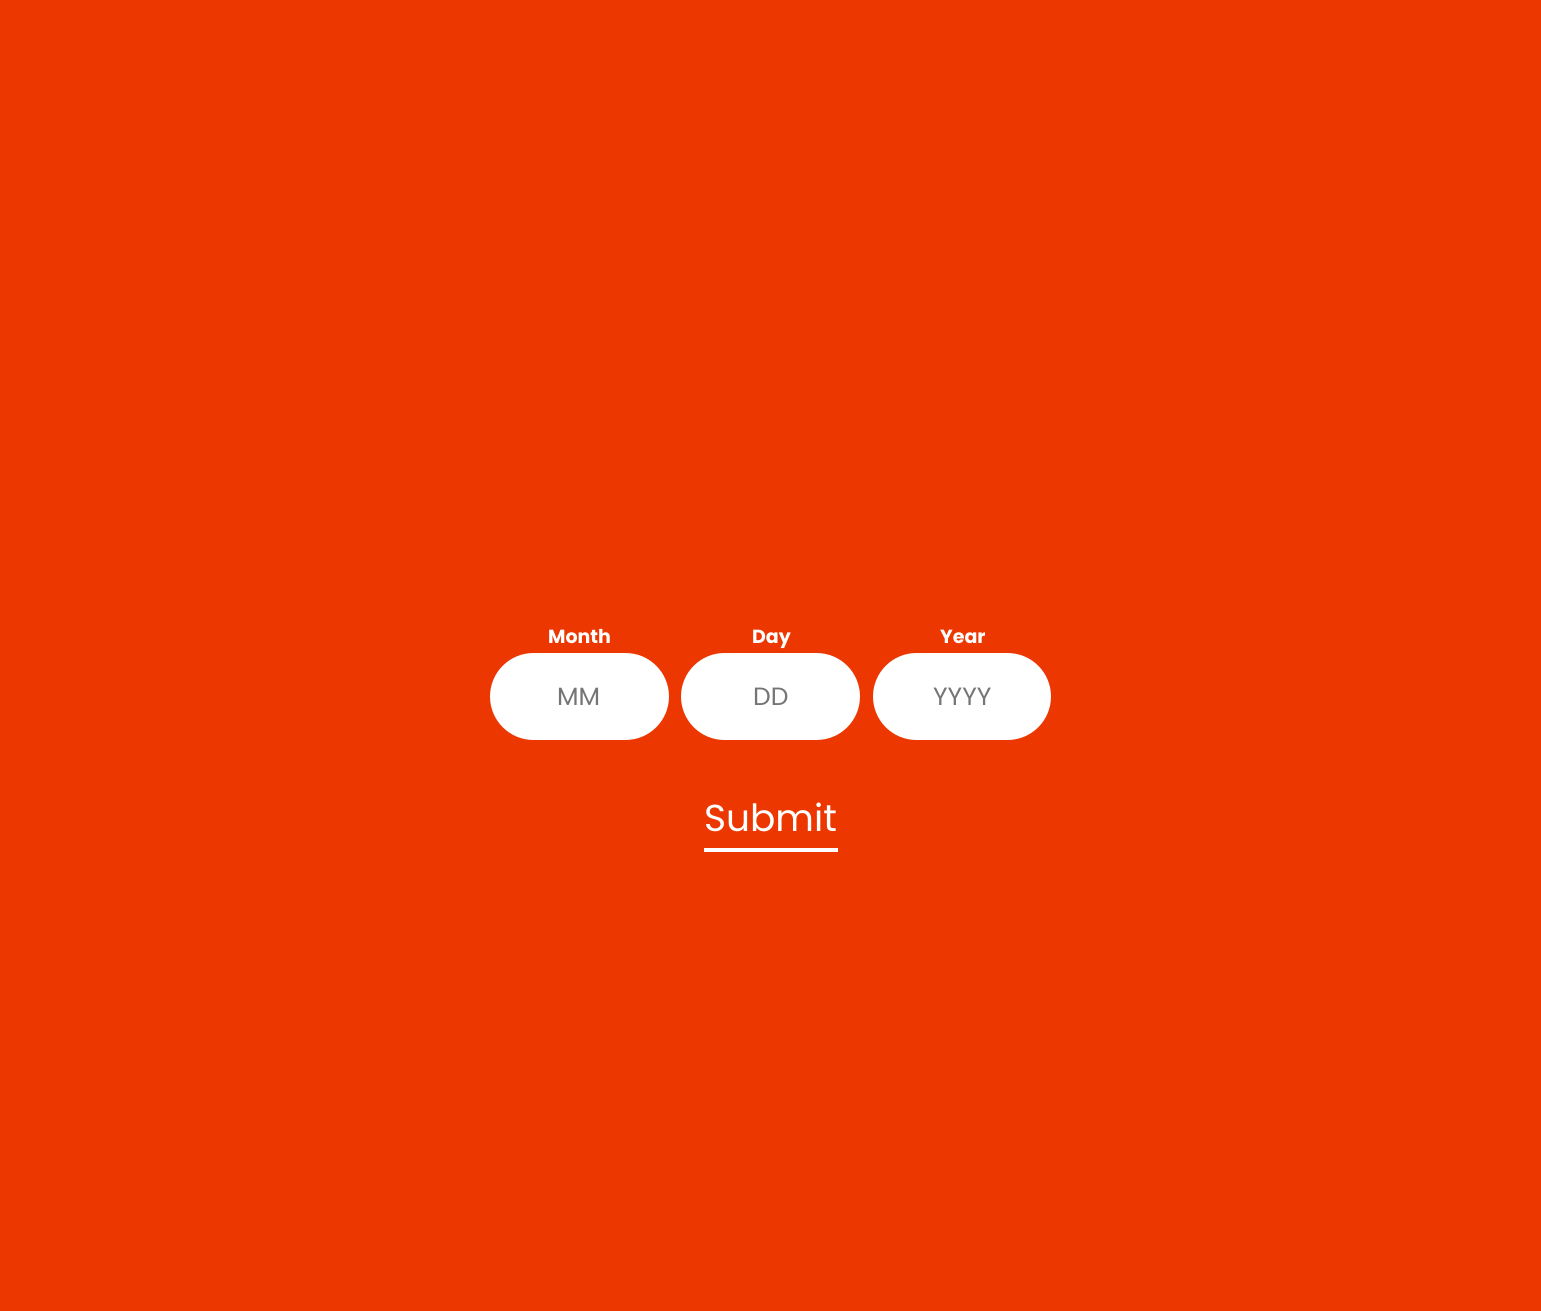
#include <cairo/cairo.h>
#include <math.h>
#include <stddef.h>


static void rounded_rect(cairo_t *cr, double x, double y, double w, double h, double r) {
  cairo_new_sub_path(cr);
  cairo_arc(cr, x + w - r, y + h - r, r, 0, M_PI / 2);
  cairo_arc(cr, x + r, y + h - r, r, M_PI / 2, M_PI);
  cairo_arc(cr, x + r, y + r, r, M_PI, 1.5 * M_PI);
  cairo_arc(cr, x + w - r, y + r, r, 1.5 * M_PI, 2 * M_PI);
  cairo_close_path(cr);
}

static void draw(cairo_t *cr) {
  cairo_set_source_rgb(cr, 237 / 255.0, 55 / 255.0, 0);
  cairo_paint(cr);
  cairo_set_source_rgb(cr, 1, 1, 1);
  rounded_rect(cr, 490, 653, 179, 87, 43.5);
  cairo_fill(cr);
  rounded_rect(cr, 681, 653, 179, 87, 43.5);
  cairo_fill(cr);
  rounded_rect(cr, 873, 653, 178, 87, 43.5);
  cairo_fill(cr);
  cairo_rectangle(cr, 704, 848, 134, 4);
  cairo_fill(cr);
  cairo_select_font_face(cr, "Poppins", CAIRO_FONT_SLANT_NORMAL, CAIRO_FONT_WEIGHT_BOLD);
  cairo_set_font_size(cr, 19);
  cairo_move_to(cr, 548, 643);
  cairo_show_text(cr, "Month");
  cairo_select_font_face(cr, "Poppins", CAIRO_FONT_SLANT_NORMAL, CAIRO_FONT_WEIGHT_NORMAL);
  cairo_set_font_size(cr, 25);
  cairo_set_source_rgb(cr, 117 / 255.0, 117 / 255.0, 117 / 255.0);
  cairo_move_to(cr, 557, 705);
  cairo_show_text(cr, "MM");
  cairo_select_font_face(cr, "Poppins", CAIRO_FONT_SLANT_NORMAL, CAIRO_FONT_WEIGHT_BOLD);
  cairo_set_font_size(cr, 19);
  cairo_set_source_rgb(cr, 1, 1, 1);
  cairo_move_to(cr, 752, 643);
  cairo_show_text(cr, "Day");
  cairo_select_font_face(cr, "Poppins", CAIRO_FONT_SLANT_NORMAL, CAIRO_FONT_WEIGHT_NORMAL);
  cairo_set_font_size(cr, 25);
  cairo_set_source_rgb(cr, 117 / 255.0, 117 / 255.0, 117 / 255.0);
  cairo_move_to(cr, 753, 705);
  cairo_show_text(cr, "DD");
  cairo_select_font_face(cr, "Poppins", CAIRO_FONT_SLANT_NORMAL, CAIRO_FONT_WEIGHT_BOLD);
  cairo_set_font_size(cr, 19);
  cairo_set_source_rgb(cr, 1, 1, 1);
  cairo_move_to(cr, 940, 643);
  cairo_show_text(cr, "Year");
  cairo_select_font_face(cr, "Poppins", CAIRO_FONT_SLANT_NORMAL, CAIRO_FONT_WEIGHT_NORMAL);
  cairo_set_font_size(cr, 25);
  cairo_set_source_rgb(cr, 117 / 255.0, 117 / 255.0, 117 / 255.0);
  cairo_move_to(cr, 933, 705);
  cairo_show_text(cr, "YYYY");
  cairo_set_font_size(cr, 37.5);
  cairo_set_source_rgb(cr, 1, 1, 1);
  cairo_move_to(cr, 704, 831);
  cairo_show_text(cr, "Submit");
}

int main(void) {
  cairo_surface_t *surface = cairo_image_surface_create(CAIRO_FORMAT_RGB24, 1541, 1311);
  cairo_t *cr = cairo_create(surface);
  cairo_font_options_t *options = cairo_font_options_create();
  cairo_font_options_set_hint_metrics(options, CAIRO_HINT_METRICS_OFF);
  cairo_font_options_set_hint_style(options, CAIRO_HINT_STYLE_NONE);
  cairo_set_font_options(cr, options);
  cairo_set_miter_limit(cr, 4);
  draw(cr);
  cairo_surface_write_to_png(surface, "out.png");
  cairo_font_options_destroy(options);
  cairo_destroy(cr);
  cairo_surface_destroy(surface);
  return 0;
}
